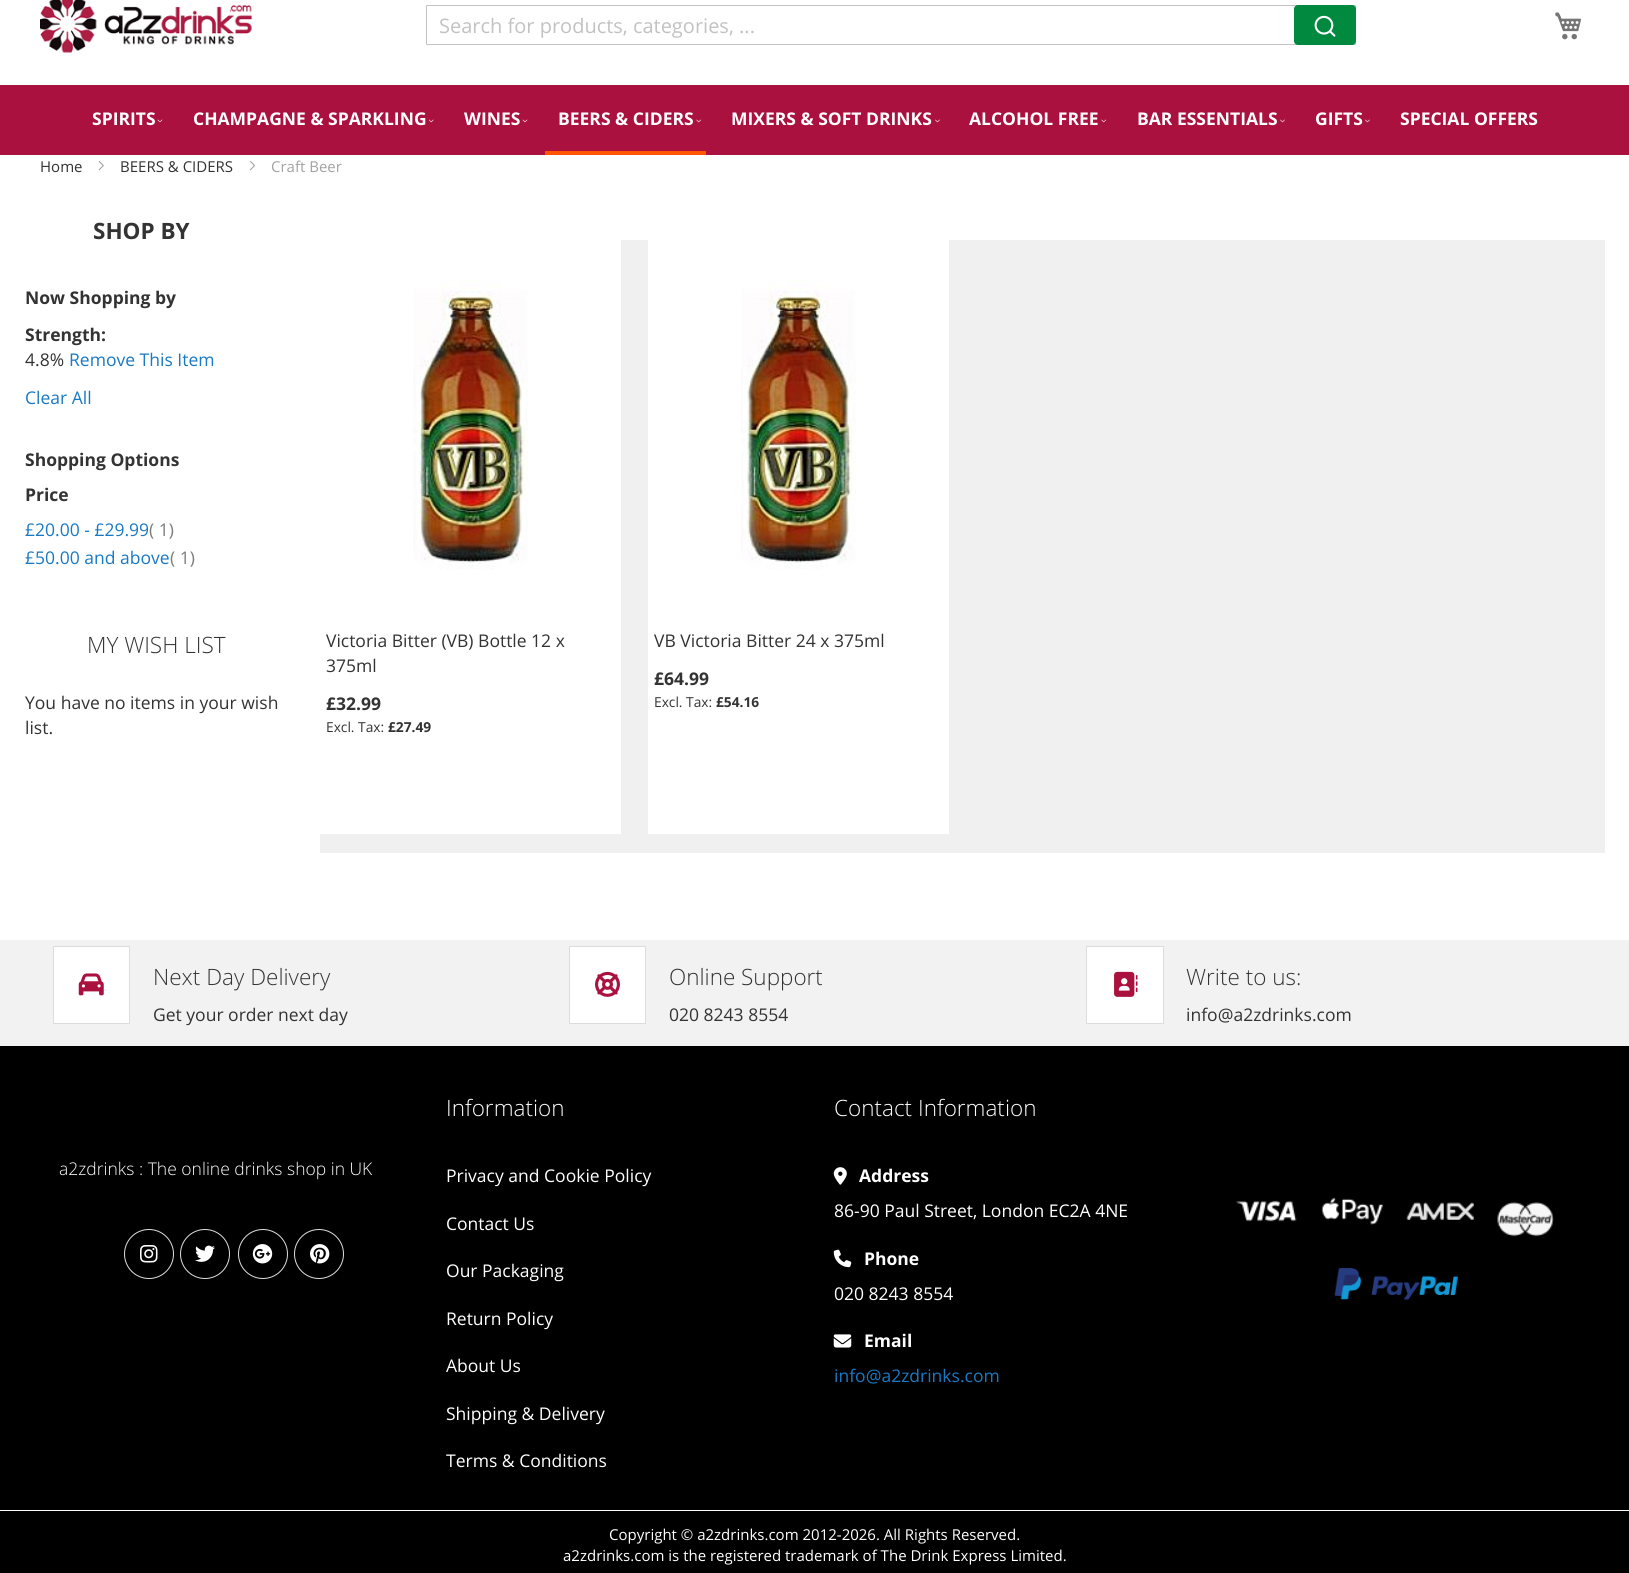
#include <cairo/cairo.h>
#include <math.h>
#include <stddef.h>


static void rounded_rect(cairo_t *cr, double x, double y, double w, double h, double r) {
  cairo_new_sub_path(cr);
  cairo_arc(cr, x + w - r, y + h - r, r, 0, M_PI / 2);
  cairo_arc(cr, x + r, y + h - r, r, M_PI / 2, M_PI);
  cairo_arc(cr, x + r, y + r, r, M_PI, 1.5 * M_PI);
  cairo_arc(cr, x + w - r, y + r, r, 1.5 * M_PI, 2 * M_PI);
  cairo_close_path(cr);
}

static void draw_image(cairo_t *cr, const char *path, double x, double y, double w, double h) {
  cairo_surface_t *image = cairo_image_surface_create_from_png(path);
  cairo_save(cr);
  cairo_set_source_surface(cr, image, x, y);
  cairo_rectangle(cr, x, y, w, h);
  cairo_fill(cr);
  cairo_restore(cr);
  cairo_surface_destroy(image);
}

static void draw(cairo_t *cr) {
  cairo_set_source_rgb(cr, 1, 1, 1);
  cairo_paint(cr);
  draw_image(cr, "images/1.png", 40, 0, 213, 53);
  rounded_rect(cr, 426.5, 5.5, 929, 39, 0.5);
  cairo_set_source_rgb(cr, 194 / 255.0, 194 / 255.0, 194 / 255.0);
  cairo_set_line_width(cr, 1);
  cairo_stroke(cr);
  cairo_set_source_rgb(cr, 0, 137 / 255.0, 63 / 255.0);
  rounded_rect(cr, 1294, 5, 62, 40, 4);
  cairo_fill(cr);
  draw_image(cr, "images/2.png", 1314, 15, 22, 22);
  draw_image(cr, "images/3.png", 1555, 12, 26, 28);
  cairo_set_source_rgb(cr, 171 / 255.0, 17 / 255.0, 63 / 255.0);
  cairo_rectangle(cr, 0, 85, 1629, 70);
  cairo_fill(cr);
  draw_image(cr, "images/4.png", 157, 119, 6, 4);
  draw_image(cr, "images/5.png", 429, 119, 5, 4);
  draw_image(cr, "images/4.png", 522, 119, 6, 4);
  cairo_set_source_rgb(cr, 1, 85 / 255.0, 1 / 255.0);
  cairo_rectangle(cr, 545, 151, 161, 4);
  cairo_fill(cr);
  draw_image(cr, "images/6.png", 696, 119, 6, 4);
  draw_image(cr, "images/7.png", 935, 119, 5, 4);
  draw_image(cr, "images/6.png", 1101, 119, 6, 4);
  draw_image(cr, "images/7.png", 1280, 119, 5, 4);
  draw_image(cr, "images/7.png", 1365, 119, 5, 4);
  draw_image(cr, "images/8.png", 98, 161, 6, 10);
  draw_image(cr, "images/9.png", 249, 161, 7, 10);
  cairo_set_source_rgb(cr, 240 / 255.0, 240 / 255.0, 240 / 255.0);
  cairo_rectangle(cr, 320, 240, 1285, 613);
  cairo_fill(cr);
  cairo_set_source_rgb(cr, 1, 1, 1);
  cairo_rectangle(cr, 320, 240, 301, 594);
  cairo_fill(cr);
  draw_image(cr, "images/10.png", 413, 280, 115, 290);
  cairo_rectangle(cr, 648, 240, 301, 594);
  cairo_fill(cr);
  draw_image(cr, "images/11.png", 741, 280, 115, 290);
  cairo_set_source_rgb(cr, 0, 0, 0);
  cairo_rectangle(cr, 0, 1046, 1629, 527);
  cairo_fill(cr);
  cairo_set_source_rgb(cr, 242 / 255.0, 242 / 255.0, 242 / 255.0);
  cairo_rectangle(cr, 0, 940, 1629, 106);
  cairo_fill(cr);
  cairo_set_source_rgb(cr, 1, 1, 1);
  cairo_rectangle(cr, 53.5, 946.5, 76, 77);
  cairo_fill_preserve(cr);
  cairo_set_source_rgb(cr, 221 / 255.0, 221 / 255.0, 221 / 255.0);
  cairo_stroke(cr);
  draw_image(cr, "images/12.png", 78, 973, 26, 23);
  cairo_set_source_rgb(cr, 1, 1, 1);
  cairo_rectangle(cr, 569.5, 946.5, 76, 77);
  cairo_fill_preserve(cr);
  cairo_set_source_rgb(cr, 221 / 255.0, 221 / 255.0, 221 / 255.0);
  cairo_stroke(cr);
  draw_image(cr, "images/13.png", 595, 971, 25, 26);
  cairo_set_source_rgb(cr, 1, 1, 1);
  cairo_rectangle(cr, 1086.5, 946.5, 77, 77);
  cairo_fill_preserve(cr);
  cairo_set_source_rgb(cr, 221 / 255.0, 221 / 255.0, 221 / 255.0);
  cairo_stroke(cr);
  draw_image(cr, "images/14.png", 1114, 971, 24, 26);
  cairo_arc(cr, 149, 1254, 24.5, 0, 2 * M_PI);
  cairo_stroke(cr);
  draw_image(cr, "images/15.png", 140, 1245, 18, 18);
  cairo_arc(cr, 205, 1254, 24.5, 0, 2 * M_PI);
  cairo_stroke(cr);
  draw_image(cr, "images/16.png", 195, 1245, 20, 17);
  cairo_arc(cr, 263, 1254, 24.5, 0, 2 * M_PI);
  cairo_stroke(cr);
  draw_image(cr, "images/17.png", 252, 1244, 21, 20);
  cairo_arc(cr, 319, 1254, 24.5, 0, 2 * M_PI);
  cairo_stroke(cr);
  draw_image(cr, "images/18.png", 310, 1244, 20, 20);
  draw_image(cr, "images/19.png", 833, 1167, 14, 18);
  draw_image(cr, "images/20.png", 833, 1249, 19, 19);
  draw_image(cr, "images/21.png", 833, 1334, 19, 14);
  draw_image(cr, "images/22.png", 1236, 1200, 61, 22);
  draw_image(cr, "images/23.png", 1321, 1197, 62, 28);
  draw_image(cr, "images/24.png", 1406, 1202, 68, 18);
  draw_image(cr, "images/25.png", 1497, 1202, 57, 35);
  draw_image(cr, "images/26.png", 1334, 1268, 124, 32);
  cairo_set_source_rgb(cr, 1, 1, 1);
  cairo_rectangle(cr, 0, 1510, 1629, 1);
  cairo_fill(cr);
  cairo_select_font_face(cr, "Open Sans", CAIRO_FONT_SLANT_NORMAL, CAIRO_FONT_WEIGHT_NORMAL);
  cairo_set_font_size(cr, 20);
  cairo_set_source_rgb(cr, 194 / 255.0, 194 / 255.0, 194 / 255.0);
  cairo_move_to(cr, 439, 33);
  cairo_show_text(cr, "Search for products, categories, ...");
  cairo_select_font_face(cr, "Open Sans", CAIRO_FONT_SLANT_NORMAL, CAIRO_FONT_WEIGHT_BOLD);
  cairo_set_font_size(cr, 17.5);
  cairo_set_source_rgb(cr, 1, 1, 1);
  cairo_move_to(cr, 92, 125);
  cairo_show_text(cr, "SPIRITS");
  cairo_move_to(cr, 193, 125);
  cairo_show_text(cr, "CHAMPAGNE & SPARKLING");
  cairo_move_to(cr, 464, 125);
  cairo_show_text(cr, "WINES");
  cairo_move_to(cr, 558, 125);
  cairo_show_text(cr, "BEERS & CIDERS");
  cairo_move_to(cr, 731, 125);
  cairo_show_text(cr, "MIXERS & SOFT DRINKS");
  cairo_move_to(cr, 969, 125);
  cairo_show_text(cr, "ALCOHOL FREE");
  cairo_move_to(cr, 1137, 125);
  cairo_show_text(cr, "BAR ESSENTIALS");
  cairo_move_to(cr, 1315, 125);
  cairo_show_text(cr, "GIFTS");
  cairo_move_to(cr, 1400, 125);
  cairo_show_text(cr, "SPECIAL OFFERS");
  cairo_select_font_face(cr, "Open Sans", CAIRO_FONT_SLANT_NORMAL, CAIRO_FONT_WEIGHT_NORMAL);
  cairo_set_font_size(cr, 15);
  cairo_set_source_rgb(cr, 51 / 255.0, 51 / 255.0, 51 / 255.0);
  cairo_move_to(cr, 40, 172);
  cairo_show_text(cr, "Home");
  cairo_move_to(cr, 120, 172);
  cairo_show_text(cr, "BEERS & CIDERS");
  cairo_set_source_rgb(cr, 163 / 255.0, 163 / 255.0, 163 / 255.0);
  cairo_move_to(cr, 271, 172);
  cairo_show_text(cr, "Craft Beer");
  cairo_select_font_face(cr, "Open Sans", CAIRO_FONT_SLANT_NORMAL, CAIRO_FONT_WEIGHT_BOLD);
  cairo_set_font_size(cr, 22.5);
  cairo_set_source_rgb(cr, 51 / 255.0, 51 / 255.0, 51 / 255.0);
  cairo_move_to(cr, 93, 239);
  cairo_show_text(cr, "SHOP BY");
  cairo_set_font_size(cr, 17.5);
  cairo_move_to(cr, 25, 304);
  cairo_show_text(cr, "Now Shopping by");
  cairo_move_to(cr, 25, 341);
  cairo_show_text(cr, "Strength:");
  cairo_select_font_face(cr, "Open Sans", CAIRO_FONT_SLANT_NORMAL, CAIRO_FONT_WEIGHT_NORMAL);
  cairo_move_to(cr, 25, 366);
  cairo_show_text(cr, "4.8%");
  cairo_set_source_rgb(cr, 25 / 255.0, 121 / 255.0, 195 / 255.0);
  cairo_move_to(cr, 69, 366);
  cairo_show_text(cr, "Remove This Item");
  cairo_move_to(cr, 25, 404);
  cairo_show_text(cr, "Clear All");
  cairo_select_font_face(cr, "Open Sans", CAIRO_FONT_SLANT_NORMAL, CAIRO_FONT_WEIGHT_BOLD);
  cairo_set_source_rgb(cr, 51 / 255.0, 51 / 255.0, 51 / 255.0);
  cairo_move_to(cr, 25, 466);
  cairo_show_text(cr, "Shopping Options");
  cairo_move_to(cr, 25, 501);
  cairo_show_text(cr, "Price");
  cairo_select_font_face(cr, "Open Sans", CAIRO_FONT_SLANT_NORMAL, CAIRO_FONT_WEIGHT_NORMAL);
  cairo_set_source_rgb(cr, 25 / 255.0, 121 / 255.0, 195 / 255.0);
  cairo_move_to(cr, 25, 536);
  cairo_show_text(cr, "£20.00 - £29.99");
  cairo_set_source_rgb(cr, 125 / 255.0, 125 / 255.0, 125 / 255.0);
  cairo_move_to(cr, 149, 536);
  cairo_show_text(cr, "( 1)");
  cairo_set_source_rgb(cr, 25 / 255.0, 121 / 255.0, 195 / 255.0);
  cairo_move_to(cr, 25, 564);
  cairo_show_text(cr, "£50.00 and above");
  cairo_set_source_rgb(cr, 125 / 255.0, 125 / 255.0, 125 / 255.0);
  cairo_move_to(cr, 170, 564);
  cairo_show_text(cr, "( 1)");
  cairo_select_font_face(cr, "Open Sans Light", CAIRO_FONT_SLANT_NORMAL, CAIRO_FONT_WEIGHT_NORMAL);
  cairo_set_font_size(cr, 22.5);
  cairo_set_source_rgb(cr, 51 / 255.0, 51 / 255.0, 51 / 255.0);
  cairo_move_to(cr, 87, 653);
  cairo_show_text(cr, "MY WISH LIST");
  cairo_select_font_face(cr, "Open Sans", CAIRO_FONT_SLANT_NORMAL, CAIRO_FONT_WEIGHT_NORMAL);
  cairo_set_font_size(cr, 17.5);
  cairo_move_to(cr, 25, 709);
  cairo_show_text(cr, "You have no items in your wish");
  cairo_move_to(cr, 25, 734);
  cairo_show_text(cr, "list.");
  cairo_move_to(cr, 326, 647);
  cairo_show_text(cr, "Victoria Bitter (VB) Bottle 12 x");
  cairo_move_to(cr, 326, 672);
  cairo_show_text(cr, "375ml");
  cairo_select_font_face(cr, "Open Sans", CAIRO_FONT_SLANT_NORMAL, CAIRO_FONT_WEIGHT_BOLD);
  cairo_move_to(cr, 326, 710);
  cairo_show_text(cr, "£32.99");
  cairo_select_font_face(cr, "Open Sans", CAIRO_FONT_SLANT_NORMAL, CAIRO_FONT_WEIGHT_NORMAL);
  cairo_set_font_size(cr, 13.75);
  cairo_move_to(cr, 326, 732);
  cairo_show_text(cr, "Excl. Tax:");
  cairo_select_font_face(cr, "Open Sans", CAIRO_FONT_SLANT_NORMAL, CAIRO_FONT_WEIGHT_BOLD);
  cairo_move_to(cr, 388, 732);
  cairo_show_text(cr, "£27.49");
  cairo_select_font_face(cr, "Open Sans", CAIRO_FONT_SLANT_NORMAL, CAIRO_FONT_WEIGHT_NORMAL);
  cairo_set_font_size(cr, 17.5);
  cairo_move_to(cr, 654, 647);
  cairo_show_text(cr, "VB Victoria Bitter 24 x 375ml");
  cairo_select_font_face(cr, "Open Sans", CAIRO_FONT_SLANT_NORMAL, CAIRO_FONT_WEIGHT_BOLD);
  cairo_move_to(cr, 654, 685);
  cairo_show_text(cr, "£64.99");
  cairo_select_font_face(cr, "Open Sans", CAIRO_FONT_SLANT_NORMAL, CAIRO_FONT_WEIGHT_NORMAL);
  cairo_set_font_size(cr, 13.75);
  cairo_move_to(cr, 654, 707);
  cairo_show_text(cr, "Excl. Tax:");
  cairo_select_font_face(cr, "Open Sans", CAIRO_FONT_SLANT_NORMAL, CAIRO_FONT_WEIGHT_BOLD);
  cairo_move_to(cr, 716, 707);
  cairo_show_text(cr, "£54.16");
  cairo_select_font_face(cr, "Open Sans Light", CAIRO_FONT_SLANT_NORMAL, CAIRO_FONT_WEIGHT_NORMAL);
  cairo_set_font_size(cr, 22.5);
  cairo_move_to(cr, 153, 985);
  cairo_show_text(cr, "Next Day Delivery");
  cairo_select_font_face(cr, "Open Sans", CAIRO_FONT_SLANT_NORMAL, CAIRO_FONT_WEIGHT_NORMAL);
  cairo_set_font_size(cr, 17.5);
  cairo_move_to(cr, 153, 1021);
  cairo_show_text(cr, "Get your order next day");
  cairo_select_font_face(cr, "Open Sans Light", CAIRO_FONT_SLANT_NORMAL, CAIRO_FONT_WEIGHT_NORMAL);
  cairo_set_font_size(cr, 22.5);
  cairo_move_to(cr, 669, 985);
  cairo_show_text(cr, "Online Support");
  cairo_select_font_face(cr, "Open Sans", CAIRO_FONT_SLANT_NORMAL, CAIRO_FONT_WEIGHT_NORMAL);
  cairo_set_font_size(cr, 17.5);
  cairo_move_to(cr, 669, 1021);
  cairo_show_text(cr, "020 8243 8554");
  cairo_select_font_face(cr, "Open Sans Light", CAIRO_FONT_SLANT_NORMAL, CAIRO_FONT_WEIGHT_NORMAL);
  cairo_set_font_size(cr, 22.5);
  cairo_move_to(cr, 1186, 985);
  cairo_show_text(cr, "Write to us:");
  cairo_select_font_face(cr, "Open Sans", CAIRO_FONT_SLANT_NORMAL, CAIRO_FONT_WEIGHT_NORMAL);
  cairo_set_font_size(cr, 17.5);
  cairo_move_to(cr, 1186, 1021);
  cairo_show_text(cr, "info@a2zdrinks.com");
  cairo_select_font_face(cr, "Open Sans Light", CAIRO_FONT_SLANT_NORMAL, CAIRO_FONT_WEIGHT_NORMAL);
  cairo_set_source_rgb(cr, 1, 1, 1);
  cairo_move_to(cr, 59, 1175);
  cairo_show_text(cr, "a2zdrinks : The online drinks shop in UK");
  cairo_set_font_size(cr, 22.5);
  cairo_move_to(cr, 446, 1116);
  cairo_show_text(cr, "Information");
  cairo_select_font_face(cr, "Open Sans", CAIRO_FONT_SLANT_NORMAL, CAIRO_FONT_WEIGHT_NORMAL);
  cairo_set_font_size(cr, 17.5);
  cairo_move_to(cr, 446, 1182);
  cairo_show_text(cr, "Privacy and Cookie Policy");
  cairo_move_to(cr, 446, 1230);
  cairo_show_text(cr, "Contact Us");
  cairo_move_to(cr, 446, 1277);
  cairo_show_text(cr, "Our Packaging");
  cairo_move_to(cr, 446, 1325);
  cairo_show_text(cr, "Return Policy");
  cairo_move_to(cr, 446, 1372);
  cairo_show_text(cr, "About Us");
  cairo_move_to(cr, 446, 1420);
  cairo_show_text(cr, "Shipping & Delivery");
  cairo_move_to(cr, 446, 1467);
  cairo_show_text(cr, "Terms & Conditions");
  cairo_select_font_face(cr, "Open Sans Light", CAIRO_FONT_SLANT_NORMAL, CAIRO_FONT_WEIGHT_NORMAL);
  cairo_set_font_size(cr, 22.5);
  cairo_move_to(cr, 834, 1116);
  cairo_show_text(cr, "Contact Information");
  cairo_select_font_face(cr, "Open Sans", CAIRO_FONT_SLANT_NORMAL, CAIRO_FONT_WEIGHT_BOLD);
  cairo_set_font_size(cr, 17.5);
  cairo_move_to(cr, 859, 1182);
  cairo_show_text(cr, "Address");
  cairo_select_font_face(cr, "Open Sans", CAIRO_FONT_SLANT_NORMAL, CAIRO_FONT_WEIGHT_NORMAL);
  cairo_move_to(cr, 834, 1217);
  cairo_show_text(cr, "86-90 Paul Street, London EC2A 4NE");
  cairo_select_font_face(cr, "Open Sans", CAIRO_FONT_SLANT_NORMAL, CAIRO_FONT_WEIGHT_BOLD);
  cairo_move_to(cr, 864, 1265);
  cairo_show_text(cr, "Phone");
  cairo_select_font_face(cr, "Open Sans", CAIRO_FONT_SLANT_NORMAL, CAIRO_FONT_WEIGHT_NORMAL);
  cairo_move_to(cr, 834, 1300);
  cairo_show_text(cr, "020 8243 8554");
  cairo_select_font_face(cr, "Open Sans", CAIRO_FONT_SLANT_NORMAL, CAIRO_FONT_WEIGHT_BOLD);
  cairo_move_to(cr, 864, 1347);
  cairo_show_text(cr, "Email");
  cairo_select_font_face(cr, "Open Sans", CAIRO_FONT_SLANT_NORMAL, CAIRO_FONT_WEIGHT_NORMAL);
  cairo_set_source_rgb(cr, 25 / 255.0, 121 / 255.0, 195 / 255.0);
  cairo_move_to(cr, 834, 1382);
  cairo_show_text(cr, "info@a2zdrinks.com");
  cairo_set_font_size(cr, 15);
  cairo_set_source_rgb(cr, 1, 1, 1);
  cairo_move_to(cr, 609, 1540);
  cairo_show_text(cr, "Copyright © a2zdrinks.com 2012-2026. All Rights Reserved.");
  cairo_move_to(cr, 563, 1561);
  cairo_show_text(cr, "a2zdrinks.com is the registered trademark of The Drink Express Limited.");
}

int main(void) {
  cairo_surface_t *surface = cairo_image_surface_create(CAIRO_FORMAT_RGB24, 1629, 1573);
  cairo_t *cr = cairo_create(surface);
  cairo_font_options_t *options = cairo_font_options_create();
  cairo_font_options_set_hint_metrics(options, CAIRO_HINT_METRICS_OFF);
  cairo_font_options_set_hint_style(options, CAIRO_HINT_STYLE_NONE);
  cairo_set_font_options(cr, options);
  cairo_set_miter_limit(cr, 4);
  draw(cr);
  cairo_surface_write_to_png(surface, "out.png");
  cairo_font_options_destroy(options);
  cairo_destroy(cr);
  cairo_surface_destroy(surface);
  return 0;
}
